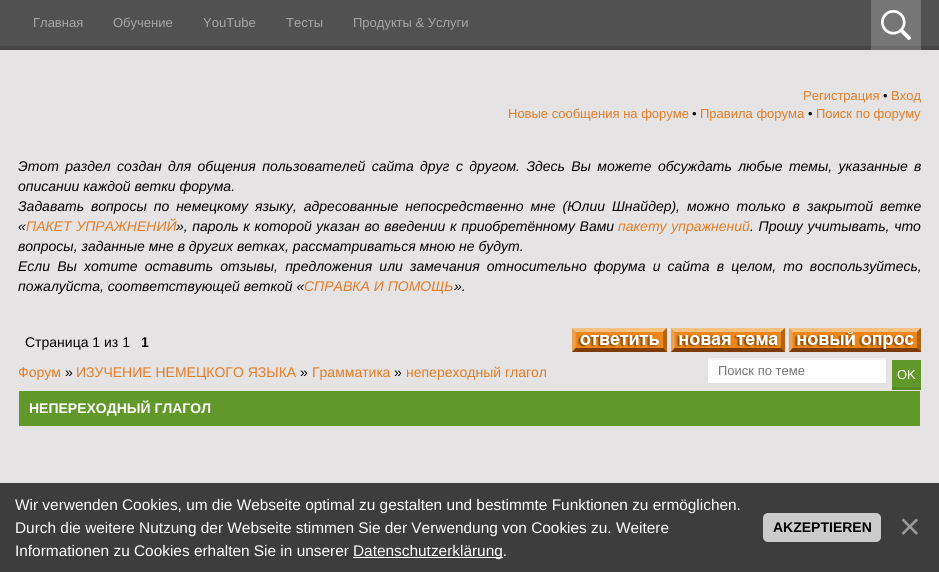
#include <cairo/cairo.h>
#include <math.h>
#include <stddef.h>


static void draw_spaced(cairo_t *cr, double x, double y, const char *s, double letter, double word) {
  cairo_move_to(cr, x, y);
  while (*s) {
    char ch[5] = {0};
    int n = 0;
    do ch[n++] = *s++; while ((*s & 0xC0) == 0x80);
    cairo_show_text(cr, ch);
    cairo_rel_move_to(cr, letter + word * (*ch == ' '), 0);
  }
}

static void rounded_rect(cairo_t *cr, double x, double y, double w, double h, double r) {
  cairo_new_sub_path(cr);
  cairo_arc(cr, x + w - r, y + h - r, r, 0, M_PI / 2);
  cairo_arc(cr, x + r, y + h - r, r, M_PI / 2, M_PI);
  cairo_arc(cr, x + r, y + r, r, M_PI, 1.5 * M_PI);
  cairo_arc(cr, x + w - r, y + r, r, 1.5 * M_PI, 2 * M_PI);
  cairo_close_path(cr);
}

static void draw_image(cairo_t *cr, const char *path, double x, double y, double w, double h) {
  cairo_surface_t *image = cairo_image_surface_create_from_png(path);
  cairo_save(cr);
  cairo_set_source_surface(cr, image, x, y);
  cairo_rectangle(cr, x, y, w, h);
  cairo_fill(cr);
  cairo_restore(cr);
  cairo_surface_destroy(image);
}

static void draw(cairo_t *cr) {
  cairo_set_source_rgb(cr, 229 / 255.0, 227 / 255.0, 228 / 255.0);
  cairo_paint(cr);
  cairo_set_source_rgb(cr, 81 / 255.0, 81 / 255.0, 81 / 255.0);
  cairo_rectangle(cr, 0, 0, 939, 46);
  cairo_fill(cr);
  cairo_set_source_rgb(cr, 70 / 255.0, 70 / 255.0, 70 / 255.0);
  cairo_rectangle(cr, 0, 46, 939, 4);
  cairo_fill(cr);
  cairo_set_source_rgb(cr, 118 / 255.0, 118 / 255.0, 118 / 255.0);
  cairo_rectangle(cr, 871, 0, 50, 46);
  cairo_fill(cr);
  draw_image(cr, "images/1.png", 881, 10, 30, 30);
  cairo_set_source_rgb(cr, 107 / 255.0, 107 / 255.0, 107 / 255.0);
  cairo_rectangle(cr, 871, 46, 50, 4);
  cairo_fill(cr);
  draw_image(cr, "images/2.png", 572, 328, 95, 24);
  draw_image(cr, "images/3.png", 671, 328, 114, 24);
  draw_image(cr, "images/4.png", 789, 328, 132, 24);
  cairo_set_source_rgb(cr, 1, 1, 1);
  cairo_rectangle(cr, 708, 360, 178, 23);
  cairo_fill(cr);
  cairo_set_source_rgb(cr, 240 / 255.0, 240 / 255.0, 240 / 255.0);
  cairo_rectangle(cr, 708, 358, 178, 2);
  cairo_fill(cr);
  cairo_rectangle(cr, 707.5, 357.5, 179, 26);
  cairo_set_source_rgb(cr, 225 / 255.0, 225 / 255.0, 225 / 255.0);
  cairo_set_line_width(cr, 1);
  cairo_stroke(cr);
  cairo_set_source_rgb(cr, 97 / 255.0, 152 / 255.0, 42 / 255.0);
  cairo_rectangle(cr, 892, 360, 29, 27);
  cairo_fill(cr);
  cairo_set_source_rgb(cr, 88 / 255.0, 138 / 255.0, 38 / 255.0);
  cairo_rectangle(cr, 892, 387, 29, 3);
  cairo_fill(cr);
  cairo_set_source_rgb(cr, 97 / 255.0, 152 / 255.0, 42 / 255.0);
  cairo_rectangle(cr, 19, 391, 901, 35);
  cairo_fill(cr);
  cairo_set_source_rgb(cr, 61 / 255.0, 61 / 255.0, 61 / 255.0);
  cairo_rectangle(cr, 0, 483, 939, 89);
  cairo_fill(cr);
  cairo_set_source_rgb(cr, 1, 1, 1);
  cairo_rectangle(cr, 353, 557, 150, 1);
  cairo_fill(cr);
  cairo_set_source_rgb(cr, 203 / 255.0, 203 / 255.0, 203 / 255.0);
  rounded_rect(cr, 763, 513, 118, 29, 5);
  cairo_fill(cr);
  cairo_select_font_face(cr, "Liberation Sans", CAIRO_FONT_SLANT_NORMAL, CAIRO_FONT_WEIGHT_NORMAL);
  cairo_set_font_size(cr, 13);
  cairo_set_source_rgb(cr, 167 / 255.0, 167 / 255.0, 167 / 255.0);
  cairo_move_to(cr, 33, 27);
  cairo_show_text(cr, "Главная");
  cairo_move_to(cr, 113, 27);
  cairo_show_text(cr, "Обучение");
  cairo_move_to(cr, 203, 27);
  cairo_show_text(cr, "YouTube");
  cairo_move_to(cr, 286, 27);
  cairo_show_text(cr, "Тесты");
  cairo_move_to(cr, 353, 27);
  cairo_show_text(cr, "Продукты & Услуги");
  cairo_set_source_rgb(cr, 226 / 255.0, 125 / 255.0, 37 / 255.0);
  cairo_move_to(cr, 803, 100);
  cairo_show_text(cr, "Регистрация");
  cairo_set_source_rgb(cr, 0, 0, 0);
  cairo_move_to(cr, 883, 100);
  cairo_show_text(cr, "•");
  cairo_set_source_rgb(cr, 226 / 255.0, 125 / 255.0, 37 / 255.0);
  cairo_move_to(cr, 891, 100);
  cairo_show_text(cr, "Вход");
  cairo_move_to(cr, 508, 118);
  cairo_show_text(cr, "Новые сообщения на форуме");
  cairo_set_source_rgb(cr, 0, 0, 0);
  cairo_move_to(cr, 692, 118);
  cairo_show_text(cr, "•");
  cairo_set_source_rgb(cr, 226 / 255.0, 125 / 255.0, 37 / 255.0);
  cairo_move_to(cr, 700, 118);
  cairo_show_text(cr, "Правила форума");
  cairo_set_source_rgb(cr, 0, 0, 0);
  cairo_move_to(cr, 808, 118);
  cairo_show_text(cr, "•");
  cairo_set_source_rgb(cr, 226 / 255.0, 125 / 255.0, 37 / 255.0);
  cairo_move_to(cr, 816, 118);
  cairo_show_text(cr, "Поиск по форуму");
  cairo_select_font_face(cr, "Liberation Sans", CAIRO_FONT_SLANT_ITALIC, CAIRO_FONT_WEIGHT_NORMAL);
  cairo_set_font_size(cr, 14);
  cairo_set_source_rgb(cr, 0, 0, 0);
  draw_spaced(cr, 18, 171, "Этот раздел создан для общения пользователей сайта друг с другом. Здесь Вы можете обсуждать любые темы, указанные в", 0, 2.5);
  cairo_move_to(cr, 18, 191);
  cairo_show_text(cr, "описании каждой ветки форума.");
  draw_spaced(cr, 18, 211, "Задавать вопросы по немецкому языку, адресованные непосредственно мне (Юлии Шнайдер), можно только в закрытой ветке", 0, 3.1);
  cairo_move_to(cr, 18, 231);
  cairo_show_text(cr, "«");
  cairo_set_source_rgb(cr, 226 / 255.0, 125 / 255.0, 37 / 255.0);
  draw_spaced(cr, 26, 231, "ПАКЕТ УПРАЖНЕНИЙ", 0, 0.75);
  cairo_set_source_rgb(cr, 0, 0, 0);
  draw_spaced(cr, 176, 231, "», пароль к которой указан во введении к приобретённому Вами", 0, 0.75);
  cairo_set_source_rgb(cr, 226 / 255.0, 125 / 255.0, 37 / 255.0);
  draw_spaced(cr, 618, 231, "пакету упражнений", 0, 0.75);
  cairo_set_source_rgb(cr, 0, 0, 0);
  draw_spaced(cr, 750, 231, ". Прошу учитывать, что", 0, 0.75);
  cairo_move_to(cr, 18, 251);
  cairo_show_text(cr, "вопросы, заданные мне в других ветках, рассматриваться мною не будут.");
  draw_spaced(cr, 18, 271, "Если Вы хотите оставить отзывы, предложения или замечания относительно форума и сайта в целом, то воспользуйтесь,", 0, 3.25);
  cairo_move_to(cr, 18, 291);
  cairo_show_text(cr, "пожалуйста, соответствующей веткой «");
  cairo_set_source_rgb(cr, 226 / 255.0, 125 / 255.0, 37 / 255.0);
  cairo_move_to(cr, 304, 291);
  cairo_show_text(cr, "СПРАВКА И ПОМОЩЬ");
  cairo_set_source_rgb(cr, 0, 0, 0);
  cairo_move_to(cr, 454, 291);
  cairo_show_text(cr, "».");
  cairo_select_font_face(cr, "Liberation Sans", CAIRO_FONT_SLANT_NORMAL, CAIRO_FONT_WEIGHT_NORMAL);
  cairo_move_to(cr, 25, 347);
  cairo_show_text(cr, "Страница 1 из 1");
  cairo_select_font_face(cr, "Liberation Sans", CAIRO_FONT_SLANT_NORMAL, CAIRO_FONT_WEIGHT_BOLD);
  cairo_move_to(cr, 141, 347);
  cairo_show_text(cr, "1");
  cairo_select_font_face(cr, "Liberation Sans", CAIRO_FONT_SLANT_NORMAL, CAIRO_FONT_WEIGHT_NORMAL);
  cairo_set_source_rgb(cr, 226 / 255.0, 125 / 255.0, 37 / 255.0);
  cairo_move_to(cr, 18, 377);
  cairo_show_text(cr, "Форум");
  cairo_set_source_rgb(cr, 0, 0, 0);
  cairo_move_to(cr, 65, 377);
  cairo_show_text(cr, "»");
  cairo_set_source_rgb(cr, 226 / 255.0, 125 / 255.0, 37 / 255.0);
  cairo_move_to(cr, 76, 377);
  cairo_show_text(cr, "ИЗУЧЕНИЕ НЕМЕЦКОГО ЯЗЫКА");
  cairo_set_source_rgb(cr, 0, 0, 0);
  cairo_move_to(cr, 300, 377);
  cairo_show_text(cr, "»");
  cairo_set_source_rgb(cr, 226 / 255.0, 125 / 255.0, 37 / 255.0);
  cairo_move_to(cr, 312, 377);
  cairo_show_text(cr, "Грамматика");
  cairo_set_source_rgb(cr, 0, 0, 0);
  cairo_move_to(cr, 394, 377);
  cairo_show_text(cr, "»");
  cairo_set_source_rgb(cr, 226 / 255.0, 125 / 255.0, 37 / 255.0);
  cairo_move_to(cr, 406, 377);
  cairo_show_text(cr, "непереходный глагол");
  cairo_set_font_size(cr, 13);
  cairo_set_source_rgb(cr, 117 / 255.0, 117 / 255.0, 117 / 255.0);
  cairo_move_to(cr, 718, 375);
  cairo_show_text(cr, "Поиск по теме");
  cairo_set_source_rgb(cr, 1, 1, 1);
  cairo_move_to(cr, 897, 379);
  cairo_show_text(cr, "OK");
  cairo_select_font_face(cr, "Liberation Sans", CAIRO_FONT_SLANT_NORMAL, CAIRO_FONT_WEIGHT_BOLD);
  cairo_set_font_size(cr, 14);
  cairo_move_to(cr, 29, 413);
  cairo_show_text(cr, "НЕПЕРЕХОДНЫЙ ГЛАГОЛ");
  cairo_select_font_face(cr, "Liberation Sans", CAIRO_FONT_SLANT_NORMAL, CAIRO_FONT_WEIGHT_NORMAL);
  cairo_set_font_size(cr, 15.4);
  cairo_move_to(cr, 15, 510);
  cairo_show_text(cr, "Wir verwenden Cookies, um die Webseite optimal zu gestalten und bestimmte Funktionen zu ermöglichen.");
  cairo_move_to(cr, 15, 533);
  cairo_show_text(cr, "Durch die weitere Nutzung der Webseite stimmen Sie der Verwendung von Cookies zu. Weitere");
  cairo_move_to(cr, 15, 556);
  cairo_show_text(cr, "Informationen zu Cookies erhalten Sie in unserer");
  cairo_move_to(cr, 353, 556);
  cairo_show_text(cr, "Datenschutzerklärung.");
  cairo_select_font_face(cr, "Liberation Sans", CAIRO_FONT_SLANT_NORMAL, CAIRO_FONT_WEIGHT_BOLD);
  cairo_set_font_size(cr, 14);
  cairo_set_source_rgb(cr, 0, 0, 0);
  cairo_move_to(cr, 773, 532);
  cairo_show_text(cr, "AKZEPTIEREN");
  cairo_select_font_face(cr, "Liberation Sans", CAIRO_FONT_SLANT_NORMAL, CAIRO_FONT_WEIGHT_NORMAL);
  cairo_set_font_size(cr, 37);
  cairo_set_source_rgb(cr, 153 / 255.0, 153 / 255.0, 153 / 255.0);
  cairo_move_to(cr, 899, 539);
  cairo_show_text(cr, "×");
}

int main(void) {
  cairo_surface_t *surface = cairo_image_surface_create(CAIRO_FORMAT_RGB24, 939, 572);
  cairo_t *cr = cairo_create(surface);
  cairo_font_options_t *options = cairo_font_options_create();
  cairo_font_options_set_hint_metrics(options, CAIRO_HINT_METRICS_OFF);
  cairo_font_options_set_hint_style(options, CAIRO_HINT_STYLE_NONE);
  cairo_set_font_options(cr, options);
  cairo_set_miter_limit(cr, 4);
  draw(cr);
  cairo_surface_write_to_png(surface, "out.png");
  cairo_font_options_destroy(options);
  cairo_destroy(cr);
  cairo_surface_destroy(surface);
  return 0;
}
